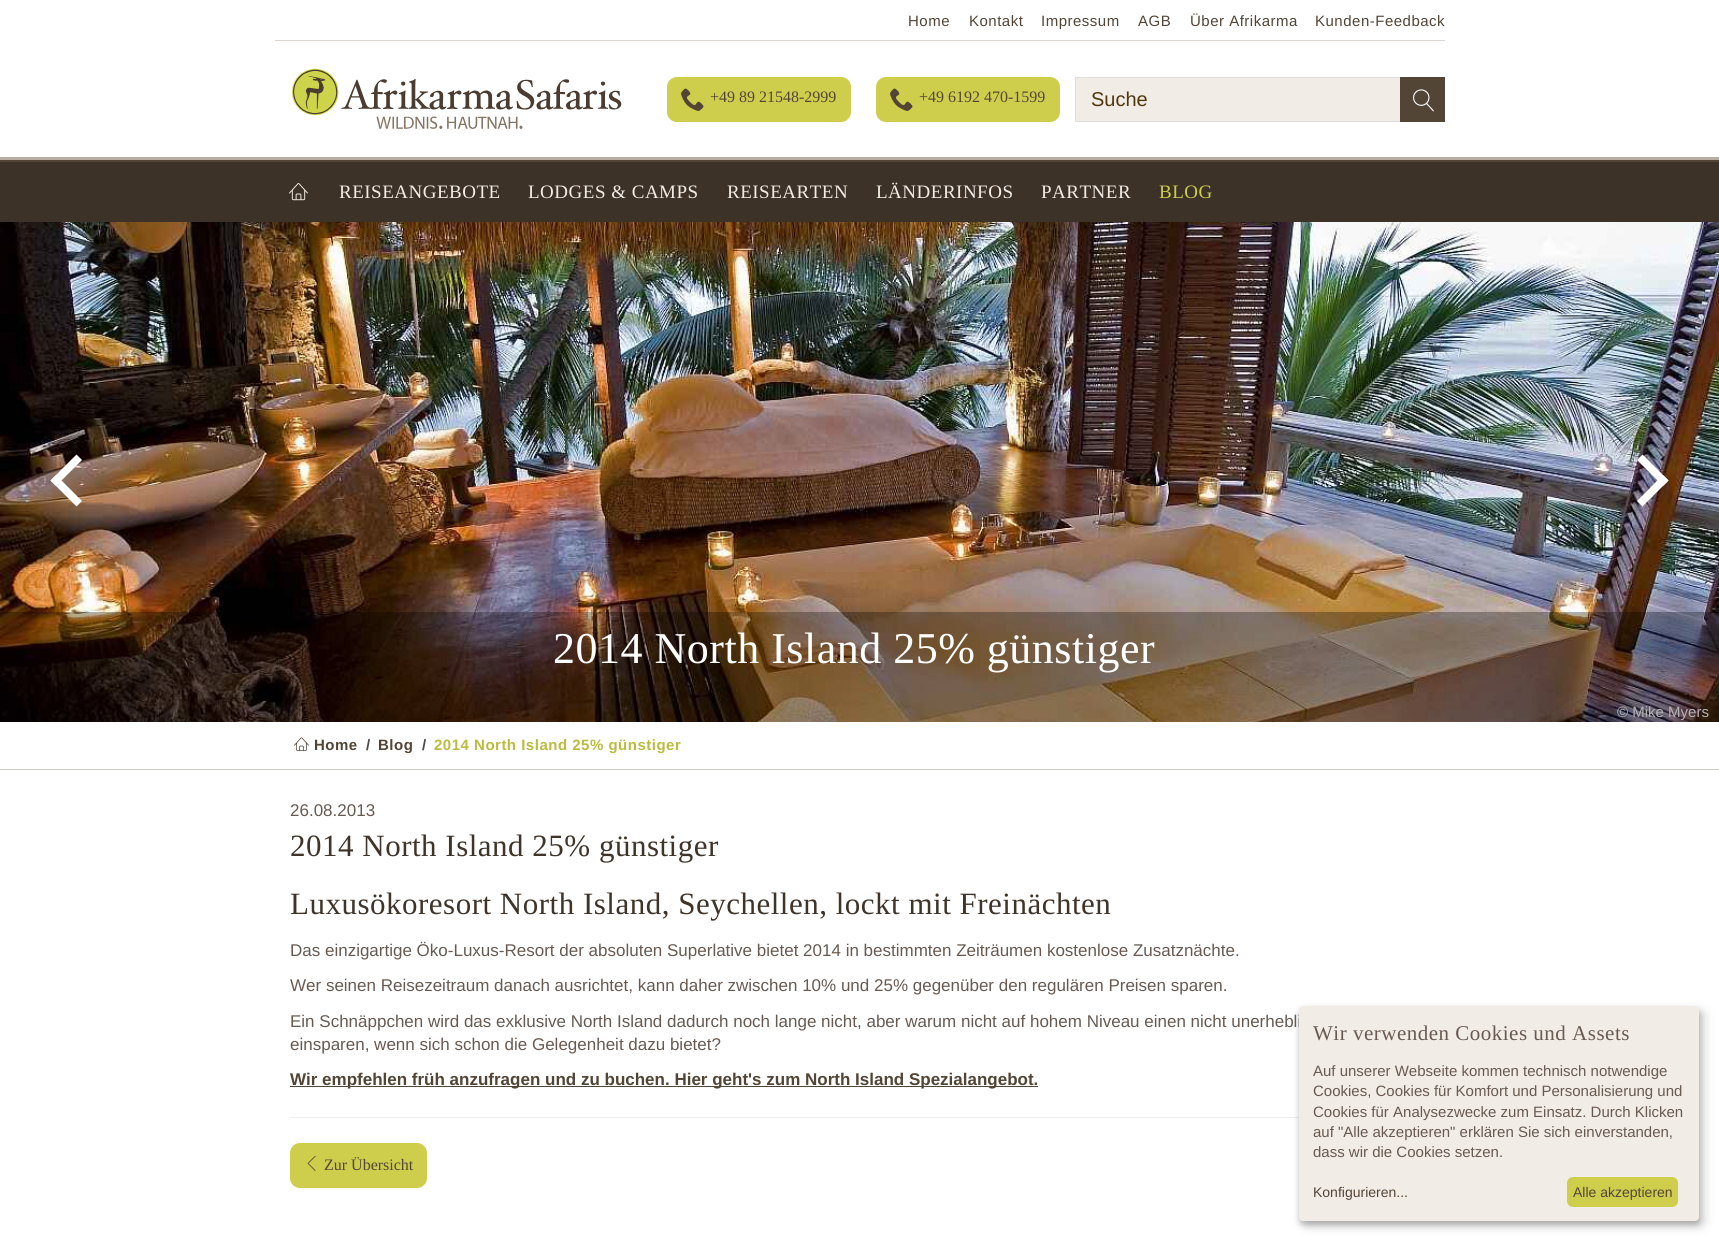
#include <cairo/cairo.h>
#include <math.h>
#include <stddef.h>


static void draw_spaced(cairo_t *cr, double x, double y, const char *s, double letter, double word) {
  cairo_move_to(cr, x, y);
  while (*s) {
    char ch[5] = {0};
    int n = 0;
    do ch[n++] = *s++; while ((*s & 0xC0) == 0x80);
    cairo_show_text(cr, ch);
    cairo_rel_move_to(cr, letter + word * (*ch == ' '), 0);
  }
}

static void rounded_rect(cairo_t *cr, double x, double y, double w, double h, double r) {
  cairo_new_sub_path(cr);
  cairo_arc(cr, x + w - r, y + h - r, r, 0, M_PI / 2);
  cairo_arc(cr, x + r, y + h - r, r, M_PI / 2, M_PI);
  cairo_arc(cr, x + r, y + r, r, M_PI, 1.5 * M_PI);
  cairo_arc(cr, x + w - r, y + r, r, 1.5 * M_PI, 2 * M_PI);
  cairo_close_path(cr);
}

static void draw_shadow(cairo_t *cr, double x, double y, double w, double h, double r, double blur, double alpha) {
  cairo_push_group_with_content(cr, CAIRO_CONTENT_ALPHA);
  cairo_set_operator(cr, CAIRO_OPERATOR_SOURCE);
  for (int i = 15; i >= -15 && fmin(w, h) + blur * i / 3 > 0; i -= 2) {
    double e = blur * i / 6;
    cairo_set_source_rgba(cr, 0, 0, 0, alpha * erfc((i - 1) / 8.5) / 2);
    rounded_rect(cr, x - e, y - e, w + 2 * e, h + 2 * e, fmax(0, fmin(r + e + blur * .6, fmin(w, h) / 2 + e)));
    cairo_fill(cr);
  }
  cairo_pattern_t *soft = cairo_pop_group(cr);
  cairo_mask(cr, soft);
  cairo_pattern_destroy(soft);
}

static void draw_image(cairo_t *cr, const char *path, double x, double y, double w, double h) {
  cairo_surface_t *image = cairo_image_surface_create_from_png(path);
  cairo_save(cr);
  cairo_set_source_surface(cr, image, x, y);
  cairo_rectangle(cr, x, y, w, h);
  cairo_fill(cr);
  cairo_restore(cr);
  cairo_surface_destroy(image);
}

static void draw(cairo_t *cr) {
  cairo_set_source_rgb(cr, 1, 1, 1);
  cairo_paint(cr);
  cairo_set_source_rgb(cr, 222 / 255.0, 215 / 255.0, 209 / 255.0);
  cairo_rectangle(cr, 275, 40, 1170, 1);
  cairo_fill(cr);
  cairo_set_source_rgb(cr, 184 / 255.0, 173 / 255.0, 162 / 255.0);
  cairo_rectangle(cr, 0, 157, 1719, 3);
  cairo_fill(cr);
  draw_image(cr, "images/1.png", 292, 68, 330, 61);
  cairo_set_source_rgb(cr, 206 / 255.0, 206 / 255.0, 76 / 255.0);
  rounded_rect(cr, 667, 77, 184, 45, 10);
  cairo_fill(cr);
  draw_image(cr, "images/2.png", 681, 88, 23, 23);
  rounded_rect(cr, 876, 77, 184, 45, 10);
  cairo_fill(cr);
  draw_image(cr, "images/2.png", 890, 88, 23, 23);
  cairo_set_source_rgb(cr, 241 / 255.0, 236 / 255.0, 230 / 255.0);
  cairo_rectangle(cr, 1076, 78, 324, 43);
  cairo_fill(cr);
  cairo_rectangle(cr, 1075.5, 77.5, 369, 44);
  cairo_set_source_rgb(cr, 222 / 255.0, 222 / 255.0, 222 / 255.0);
  cairo_set_line_width(cr, 1);
  cairo_stroke(cr);
  cairo_set_source_rgb(cr, 83 / 255.0, 69 / 255.0, 54 / 255.0);
  cairo_rectangle(cr, 1400, 77, 45, 45);
  cairo_fill(cr);
  draw_image(cr, "images/3.png", 1413, 89, 21, 23);
  cairo_set_source_rgb(cr, 61 / 255.0, 50 / 255.0, 39 / 255.0);
  cairo_rectangle(cr, 0, 162, 1719, 60);
  cairo_fill(cr);
  cairo_set_source_rgb(cr, 83 / 255.0, 69 / 255.0, 54 / 255.0);
  cairo_rectangle(cr, 0, 160, 1719, 2);
  cairo_fill(cr);
  draw_image(cr, "images/4.png", 289, 183, 19, 18);
  draw_image(cr, "images/5.png", 0, 222, 1719, 500);
  cairo_set_source_rgb(cr, 1, 1, 1);
  cairo_new_path(cr);
  cairo_move_to(cr, 82, 501);
  cairo_line_to(cr, 76.5, 506.5);
  cairo_line_to(cr, 50.5, 480.5);
  cairo_line_to(cr, 56, 475);
  cairo_close_path(cr);
  cairo_fill(cr);
  cairo_new_path(cr);
  cairo_move_to(cr, 82, 460);
  cairo_line_to(cr, 56, 486);
  cairo_line_to(cr, 50.5, 480.5);
  cairo_line_to(cr, 76.5, 454.5);
  cairo_close_path(cr);
  cairo_fill(cr);
  cairo_new_path(cr);
  cairo_move_to(cr, 1637, 460);
  cairo_line_to(cr, 1642.5, 454.5);
  cairo_line_to(cr, 1668.5, 480.5);
  cairo_line_to(cr, 1663, 486);
  cairo_close_path(cr);
  cairo_fill(cr);
  cairo_new_path(cr);
  cairo_move_to(cr, 1637, 501);
  cairo_line_to(cr, 1663, 475);
  cairo_line_to(cr, 1668.5, 480.5);
  cairo_line_to(cr, 1642.5, 506.5);
  cairo_close_path(cr);
  cairo_fill(cr);
  cairo_set_source_rgb(cr, 203 / 255.0, 199 / 255.0, 195 / 255.0);
  cairo_rectangle(cr, 0, 769, 1719, 1);
  cairo_fill(cr);
  draw_image(cr, "images/6.png", 294, 737, 15, 14);
  cairo_set_source_rgb(cr, 83 / 255.0, 69 / 255.0, 54 / 255.0);
  cairo_rectangle(cr, 290, 1086, 748, 1);
  cairo_fill(cr);
  cairo_set_source_rgb(cr, 238 / 255.0, 238 / 255.0, 238 / 255.0);
  cairo_rectangle(cr, 290, 1117, 1009, 1);
  cairo_fill(cr);
  cairo_set_source_rgb(cr, 206 / 255.0, 206 / 255.0, 76 / 255.0);
  rounded_rect(cr, 290, 1143, 137, 45, 10);
  cairo_fill(cr);
  draw_image(cr, "images/7.png", 307, 1155, 9, 16);
  cairo_set_source_rgb(cr, 0, 0, 0);
  draw_shadow(cr, 1304, 1011, 400, 215, 4, 5, 0.19);
  draw_shadow(cr, 1299, 1010, 400, 215, 4, 3, 0.2);
  cairo_select_font_face(cr, "Liberation Sans", CAIRO_FONT_SLANT_NORMAL, CAIRO_FONT_WEIGHT_NORMAL);
  cairo_set_font_size(cr, 15);
  cairo_set_source_rgb(cr, 83 / 255.0, 69 / 255.0, 54 / 255.0);
  draw_spaced(cr, 908, 26, "Home", 0.5, 0);
  draw_spaced(cr, 969, 26, "Kontakt", 0.5, 0);
  draw_spaced(cr, 1041, 26, "Impressum", 0.5, 0);
  draw_spaced(cr, 1138, 26, "AGB", 0.5, 0);
  draw_spaced(cr, 1190, 26, "Über Afrikarma", 0.5, 0);
  draw_spaced(cr, 1315, 26, "Kunden-Feedback", 0.5, 0);
  cairo_select_font_face(cr, "Liberation Serif", CAIRO_FONT_SLANT_NORMAL, CAIRO_FONT_WEIGHT_NORMAL);
  cairo_set_font_size(cr, 16);
  cairo_move_to(cr, 710, 102);
  cairo_show_text(cr, "+49 89 21548-2999");
  cairo_move_to(cr, 919, 102);
  cairo_show_text(cr, "+49 6192 470-1599");
  cairo_select_font_face(cr, "Liberation Sans", CAIRO_FONT_SLANT_NORMAL, CAIRO_FONT_WEIGHT_NORMAL);
  cairo_set_font_size(cr, 20);
  cairo_set_source_rgb(cr, 80 / 255.0, 56 / 255.0, 12 / 255.0);
  cairo_move_to(cr, 1091, 106);
  cairo_show_text(cr, "Suche");
  cairo_select_font_face(cr, "Liberation Serif", CAIRO_FONT_SLANT_NORMAL, CAIRO_FONT_WEIGHT_NORMAL);
  cairo_set_font_size(cr, 19);
  cairo_set_source_rgb(cr, 241 / 255.0, 236 / 255.0, 230 / 255.0);
  draw_spaced(cr, 339, 198, "REISEANGEBOTE", 0.5, 0);
  draw_spaced(cr, 528, 198, "LODGES & CAMPS", 0.5, 0);
  draw_spaced(cr, 727, 198, "REISEARTEN", 0.5, 0);
  draw_spaced(cr, 876, 198, "LÄNDERINFOS", 0.5, 0);
  draw_spaced(cr, 1041, 198, "PARTNER", 0.5, 0);
  cairo_set_source_rgb(cr, 206 / 255.0, 206 / 255.0, 76 / 255.0);
  draw_spaced(cr, 1159, 198, "BLOG", 0.5, 0);
  cairo_select_font_face(cr, "Liberation Sans", CAIRO_FONT_SLANT_NORMAL, CAIRO_FONT_WEIGHT_NORMAL);
  cairo_set_font_size(cr, 15);
  cairo_set_source_rgb(cr, 1, 1, 1);
  cairo_move_to(cr, 1617, 717);
  cairo_show_text(cr, "© Mike Myers");
  cairo_set_source_rgba(cr, 0, 0, 0, 0.3);
  cairo_rectangle(cr, 0, 612, 1719, 110);
  cairo_fill(cr);
  cairo_select_font_face(cr, "Liberation Serif", CAIRO_FONT_SLANT_NORMAL, CAIRO_FONT_WEIGHT_NORMAL);
  cairo_set_font_size(cr, 44);
  cairo_set_source_rgb(cr, 1, 1, 1);
  draw_spaced(cr, 553, 663, "2014 North Island 25% günstiger", 0.5, 0);
  cairo_select_font_face(cr, "Liberation Sans", CAIRO_FONT_SLANT_NORMAL, CAIRO_FONT_WEIGHT_BOLD);
  cairo_set_font_size(cr, 15);
  cairo_set_source_rgb(cr, 83 / 255.0, 69 / 255.0, 54 / 255.0);
  draw_spaced(cr, 314, 750, "Home", 0.5, 0);
  cairo_set_source_rgb(cr, 74 / 255.0, 74 / 255.0, 74 / 255.0);
  draw_spaced(cr, 366, 750, "/", 0.5, 0);
  cairo_set_source_rgb(cr, 83 / 255.0, 69 / 255.0, 54 / 255.0);
  draw_spaced(cr, 378, 750, "Blog", 0.5, 0);
  cairo_set_source_rgb(cr, 74 / 255.0, 74 / 255.0, 74 / 255.0);
  draw_spaced(cr, 422, 750, "/", 0.5, 0);
  cairo_set_source_rgb(cr, 187 / 255.0, 187 / 255.0, 64 / 255.0);
  draw_spaced(cr, 434, 750, "2014 North Island 25% günstiger", 0.5, 0);
  cairo_select_font_face(cr, "Liberation Sans", CAIRO_FONT_SLANT_NORMAL, CAIRO_FONT_WEIGHT_NORMAL);
  cairo_set_font_size(cr, 17);
  cairo_set_source_rgb(cr, 104 / 255.0, 90 / 255.0, 81 / 255.0);
  cairo_move_to(cr, 290, 816);
  cairo_show_text(cr, "26.08.2013");
  cairo_select_font_face(cr, "Liberation Serif", CAIRO_FONT_SLANT_NORMAL, CAIRO_FONT_WEIGHT_NORMAL);
  cairo_set_font_size(cr, 31);
  cairo_set_source_rgb(cr, 63 / 255.0, 52 / 255.0, 41 / 255.0);
  draw_spaced(cr, 290, 856, "2014 North Island 25% günstiger", 0.5, 0);
  draw_spaced(cr, 290, 914, "Luxusökoresort North Island, Seychellen, lockt mit Freinächten", 0.5, 0);
  cairo_select_font_face(cr, "Liberation Sans", CAIRO_FONT_SLANT_NORMAL, CAIRO_FONT_WEIGHT_NORMAL);
  cairo_set_font_size(cr, 17);
  cairo_set_source_rgb(cr, 104 / 255.0, 90 / 255.0, 81 / 255.0);
  cairo_move_to(cr, 290, 956);
  cairo_show_text(cr, "Das einzigartige Öko-Luxus-Resort der absoluten Superlative bietet 2014 in bestimmten Zeiträumen kostenlose Zusatznächte.");
  cairo_move_to(cr, 290, 991);
  cairo_show_text(cr, "Wer seinen Reisezeitraum danach ausrichtet, kann daher zwischen 10% und 25% gegenüber den regulären Preisen sparen.");
  cairo_move_to(cr, 290, 1027);
  cairo_show_text(cr, "Ein Schnäppchen wird das exklusive North Island dadurch noch lange nicht, aber warum nicht auf hohem Niveau einen nicht unerhebli");
  cairo_move_to(cr, 290, 1050);
  cairo_show_text(cr, "einsparen, wenn sich schon die Gelegenheit dazu bietet?");
  cairo_select_font_face(cr, "Liberation Sans", CAIRO_FONT_SLANT_NORMAL, CAIRO_FONT_WEIGHT_BOLD);
  cairo_set_source_rgb(cr, 83 / 255.0, 69 / 255.0, 54 / 255.0);
  cairo_move_to(cr, 290, 1085);
  cairo_show_text(cr, "Wir empfehlen früh anzufragen und zu buchen. Hier geht's zum North Island Spezialangebot.");
  cairo_select_font_face(cr, "Liberation Serif", CAIRO_FONT_SLANT_NORMAL, CAIRO_FONT_WEIGHT_NORMAL);
  cairo_set_font_size(cr, 16);
  cairo_move_to(cr, 324, 1170);
  cairo_show_text(cr, "Zur Übersicht");
  cairo_set_source_rgb(cr, 241 / 255.0, 236 / 255.0, 230 / 255.0);
  rounded_rect(cr, 1299, 1006, 400, 215, 4);
  cairo_fill(cr);
  cairo_set_font_size(cr, 21);
  cairo_set_source_rgb(cr, 104 / 255.0, 90 / 255.0, 81 / 255.0);
  draw_spaced(cr, 1313, 1040, "Wir verwenden Cookies und Assets", 0.5, 0);
  cairo_select_font_face(cr, "Liberation Sans", CAIRO_FONT_SLANT_NORMAL, CAIRO_FONT_WEIGHT_NORMAL);
  cairo_set_font_size(cr, 15);
  cairo_move_to(cr, 1313, 1076);
  cairo_show_text(cr, "Auf unserer Webseite kommen technisch notwendige");
  cairo_move_to(cr, 1313, 1096);
  cairo_show_text(cr, "Cookies, Cookies für Komfort und Personalisierung und");
  cairo_move_to(cr, 1313, 1117);
  cairo_show_text(cr, "Cookies für Analysezwecke zum Einsatz. Durch Klicken");
  cairo_move_to(cr, 1313, 1137);
  cairo_show_text(cr, "auf \"Alle akzeptieren\" erklären Sie sich einverstanden,");
  cairo_move_to(cr, 1313, 1157);
  cairo_show_text(cr, "dass wir die Cookies setzen.");
  cairo_set_font_size(cr, 14);
  cairo_set_source_rgb(cr, 83 / 255.0, 69 / 255.0, 54 / 255.0);
  cairo_move_to(cr, 1313, 1197);
  cairo_show_text(cr, "Konfigurieren...");
  cairo_set_source_rgb(cr, 206 / 255.0, 206 / 255.0, 76 / 255.0);
  rounded_rect(cr, 1567, 1177, 111, 30, 6);
  cairo_fill(cr);
  cairo_set_source_rgb(cr, 83 / 255.0, 69 / 255.0, 54 / 255.0);
  cairo_move_to(cr, 1573, 1197);
  cairo_show_text(cr, "Alle akzeptieren");
}

int main(void) {
  cairo_surface_t *surface = cairo_image_surface_create(CAIRO_FORMAT_RGB24, 1719, 1241);
  cairo_t *cr = cairo_create(surface);
  cairo_font_options_t *options = cairo_font_options_create();
  cairo_font_options_set_hint_metrics(options, CAIRO_HINT_METRICS_OFF);
  cairo_font_options_set_hint_style(options, CAIRO_HINT_STYLE_NONE);
  cairo_set_font_options(cr, options);
  cairo_set_miter_limit(cr, 4);
  draw(cr);
  cairo_surface_write_to_png(surface, "out.png");
  cairo_font_options_destroy(options);
  cairo_destroy(cr);
  cairo_surface_destroy(surface);
  return 0;
}
